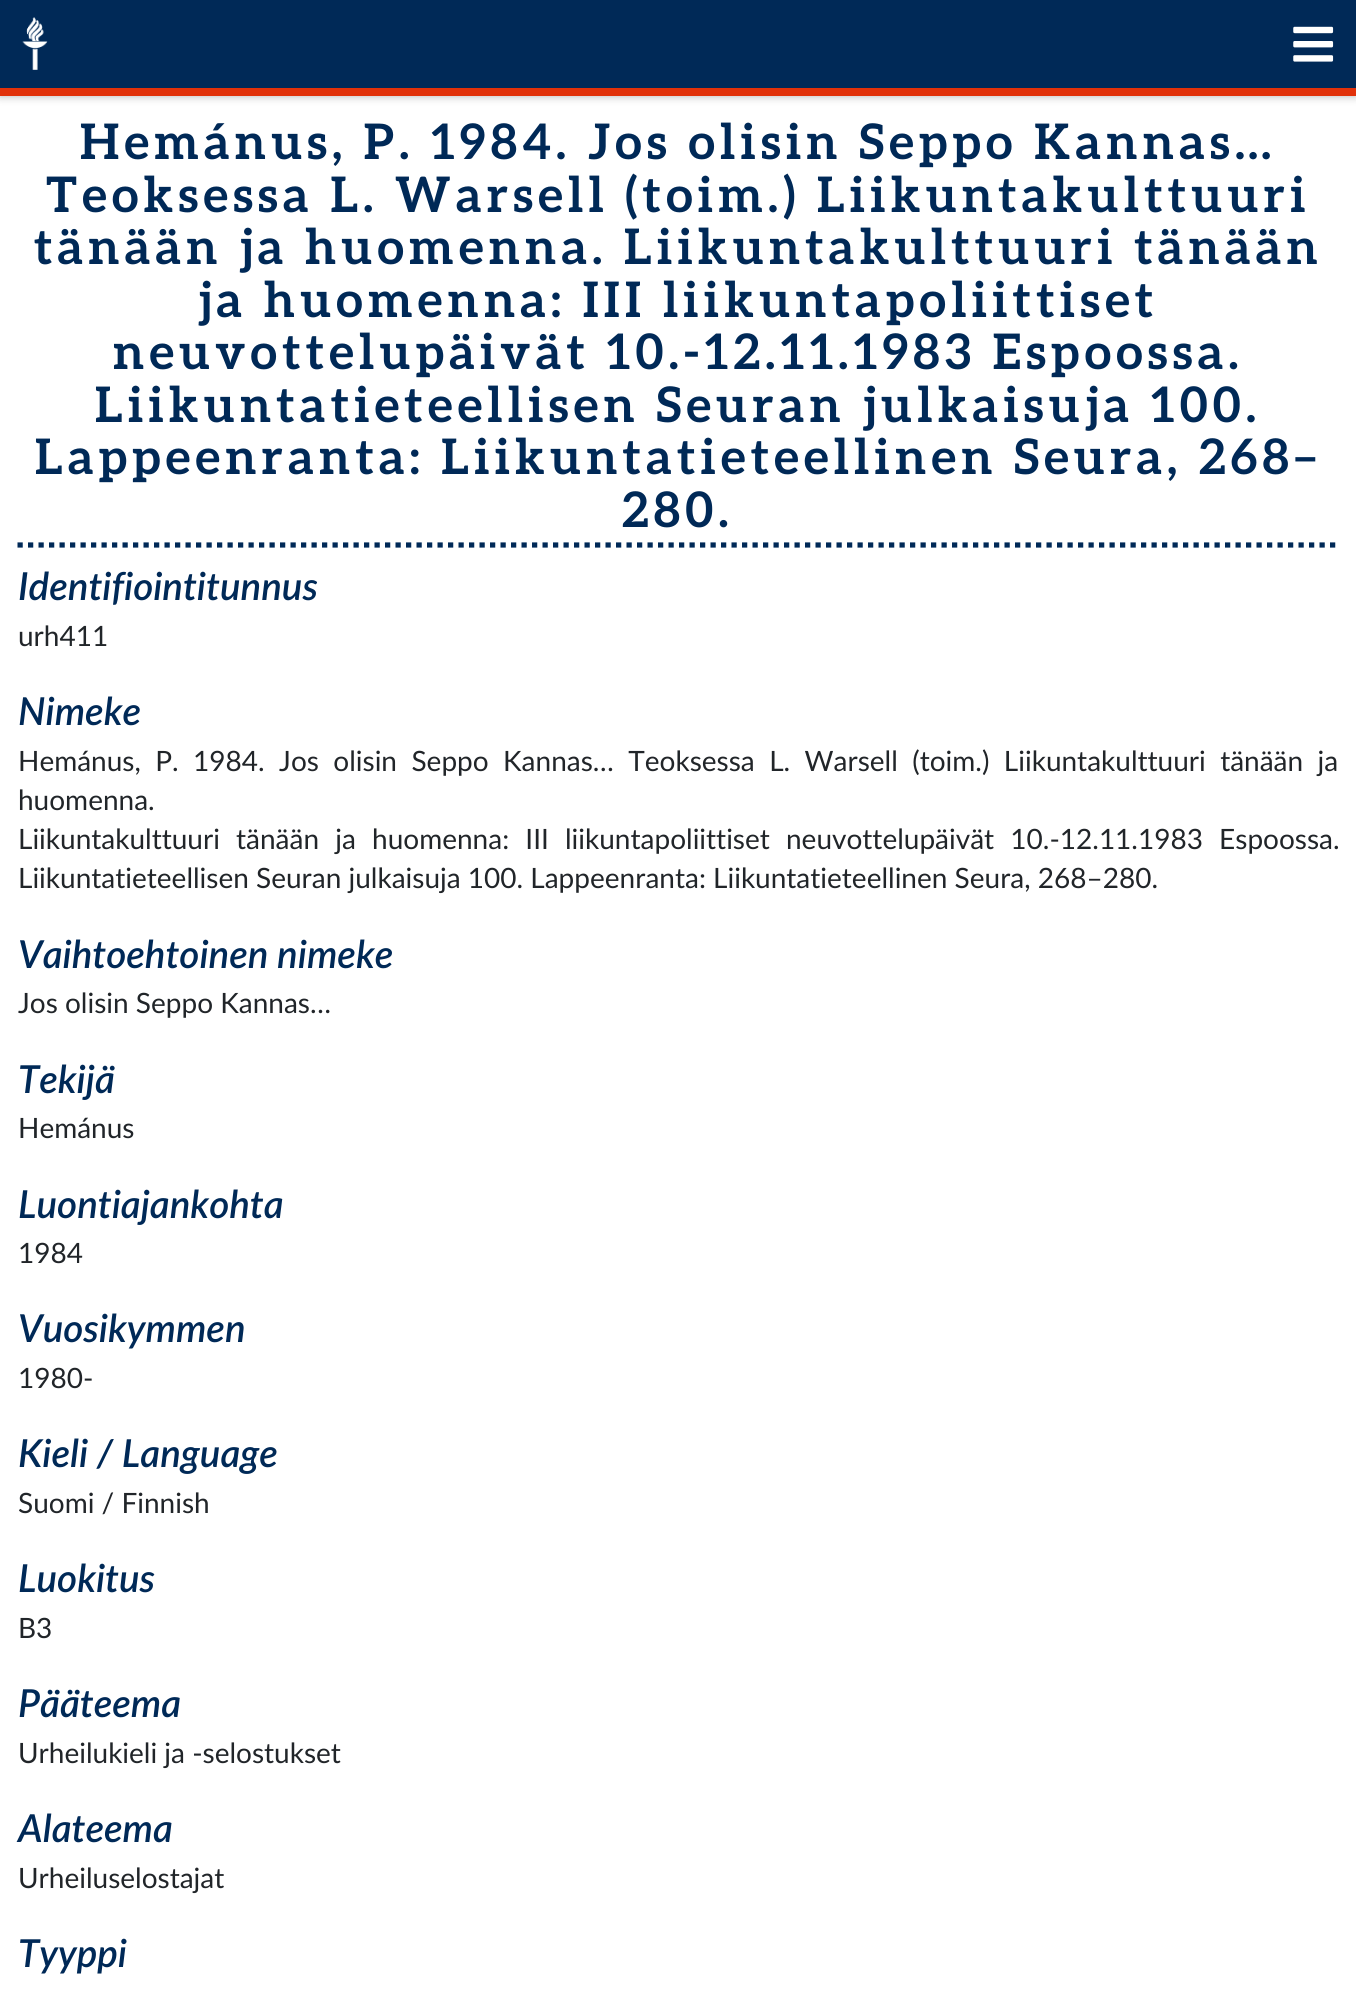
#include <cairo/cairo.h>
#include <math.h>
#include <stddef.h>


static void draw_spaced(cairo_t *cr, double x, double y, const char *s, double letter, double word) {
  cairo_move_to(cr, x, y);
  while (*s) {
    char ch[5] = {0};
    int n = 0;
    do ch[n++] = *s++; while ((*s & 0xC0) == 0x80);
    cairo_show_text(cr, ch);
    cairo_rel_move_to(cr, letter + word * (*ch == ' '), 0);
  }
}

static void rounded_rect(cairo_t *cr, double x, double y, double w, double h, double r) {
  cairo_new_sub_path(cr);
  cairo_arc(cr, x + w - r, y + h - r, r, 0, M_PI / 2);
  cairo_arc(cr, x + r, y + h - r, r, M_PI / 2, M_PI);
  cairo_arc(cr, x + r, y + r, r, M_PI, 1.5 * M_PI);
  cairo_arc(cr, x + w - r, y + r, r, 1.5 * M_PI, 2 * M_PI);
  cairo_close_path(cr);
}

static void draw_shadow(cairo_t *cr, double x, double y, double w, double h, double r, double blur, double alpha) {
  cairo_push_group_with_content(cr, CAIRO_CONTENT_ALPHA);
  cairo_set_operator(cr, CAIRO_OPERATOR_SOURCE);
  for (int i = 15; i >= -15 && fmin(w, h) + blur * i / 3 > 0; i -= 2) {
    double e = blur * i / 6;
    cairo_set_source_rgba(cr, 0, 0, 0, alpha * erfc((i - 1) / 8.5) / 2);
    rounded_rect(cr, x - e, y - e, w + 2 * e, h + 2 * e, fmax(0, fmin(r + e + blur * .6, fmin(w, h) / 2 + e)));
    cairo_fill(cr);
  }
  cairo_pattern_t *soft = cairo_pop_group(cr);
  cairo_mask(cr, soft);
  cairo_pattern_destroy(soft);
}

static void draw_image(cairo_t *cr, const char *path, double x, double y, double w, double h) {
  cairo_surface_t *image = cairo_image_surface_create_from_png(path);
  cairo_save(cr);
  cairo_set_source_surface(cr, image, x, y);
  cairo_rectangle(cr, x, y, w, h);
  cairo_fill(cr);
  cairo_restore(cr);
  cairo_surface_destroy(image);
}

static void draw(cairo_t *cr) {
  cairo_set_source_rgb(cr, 1, 1, 1);
  cairo_paint(cr);
  cairo_set_source_rgb(cr, 0, 0, 0);
  draw_shadow(cr, 0, 9, 1356, 87, 0, 4.5, 0.3);
  cairo_set_source_rgb(cr, 0, 41 / 255.0, 87 / 255.0);
  cairo_rectangle(cr, 0, 0, 1356, 88);
  cairo_fill(cr);
  draw_image(cr, "images/1.png", 22, 17, 26, 53);
  draw_image(cr, "images/2.png", 1293, 26, 41, 36);
  cairo_set_source_rgb(cr, 225 / 255.0, 49 / 255.0, 10 / 255.0);
  cairo_rectangle(cr, 0, 88, 1356, 8);
  cairo_fill(cr);
  cairo_new_path(cr);
  cairo_move_to(cr, 17.5, 545);
  cairo_line_to(cr, 1339, 545);
  cairo_set_source_rgb(cr, 0, 41 / 255.0, 87 / 255.0);
  cairo_set_line_width(cr, 5.2);
  cairo_set_dash(cr, (double[]){5.25, 5.25}, 2, 0);
  cairo_stroke(cr);
  cairo_select_font_face(cr, "Aleo", CAIRO_FONT_SLANT_NORMAL, CAIRO_FONT_WEIGHT_BOLD);
  cairo_set_font_size(cr, 49);
  draw_spaced(cr, 80, 159, "Hemánus, P. 1984. Jos olisin Seppo Kannas…", 5.25, 0);
  draw_spaced(cr, 46, 212, "Teoksessa L. Warsell (toim.) Liikuntakulttuuri", 5.25, 0);
  draw_spaced(cr, 34, 264, "tänään ja huomenna. Liikuntakulttuuri tänään", 5.25, 0);
  draw_spaced(cr, 198, 317, "ja huomenna: III liikuntapoliittiset", 5.25, 0);
  draw_spaced(cr, 113, 369, "neuvottelupäivät 10.-12.11.1983 Espoossa.", 5.25, 0);
  draw_spaced(cr, 95, 422, "Liikuntatieteellisen Seuran julkaisuja 100.", 5.25, 0);
  draw_spaced(cr, 35, 474, "Lappeenranta: Liikuntatieteellinen Seura, 268–", 5.25, 0);
  draw_spaced(cr, 622, 527, "280.", 5.25, 0);
  cairo_select_font_face(cr, "Lato SemiBold", CAIRO_FONT_SLANT_ITALIC, CAIRO_FONT_WEIGHT_NORMAL);
  cairo_set_font_size(cr, 38.5);
  cairo_move_to(cr, 18, 600);
  cairo_show_text(cr, "Identifiointitunnus");
  cairo_select_font_face(cr, "Lato", CAIRO_FONT_SLANT_NORMAL, CAIRO_FONT_WEIGHT_NORMAL);
  cairo_set_font_size(cr, 28);
  cairo_set_source_rgb(cr, 33 / 255.0, 37 / 255.0, 41 / 255.0);
  cairo_move_to(cr, 18, 646);
  cairo_show_text(cr, "urh411");
  cairo_select_font_face(cr, "Lato SemiBold", CAIRO_FONT_SLANT_ITALIC, CAIRO_FONT_WEIGHT_NORMAL);
  cairo_set_font_size(cr, 38.5);
  cairo_set_source_rgb(cr, 0, 41 / 255.0, 87 / 255.0);
  cairo_move_to(cr, 18, 725);
  cairo_show_text(cr, "Nimeke");
  cairo_select_font_face(cr, "Lato", CAIRO_FONT_SLANT_NORMAL, CAIRO_FONT_WEIGHT_NORMAL);
  cairo_set_font_size(cr, 28);
  cairo_set_source_rgb(cr, 33 / 255.0, 37 / 255.0, 41 / 255.0);
  draw_spaced(cr, 18, 771, "Hemánus, P. 1984. Jos olisin Seppo Kannas… Teoksessa L. Warsell (toim.) Liikuntakulttuuri tänään ja", 0, 7.25);
  cairo_move_to(cr, 18, 810);
  cairo_show_text(cr, "huomenna.");
  draw_spaced(cr, 18, 849, "Liikuntakulttuuri tänään ja huomenna: III liikuntapoliittiset neuvottelupäivät 10.-12.11.1983 Espoossa.", 0, 9);
  cairo_move_to(cr, 18, 888);
  cairo_show_text(cr, "Liikuntatieteellisen Seuran julkaisuja 100. Lappeenranta: Liikuntatieteellinen Seura, 268–280.");
  cairo_select_font_face(cr, "Lato SemiBold", CAIRO_FONT_SLANT_ITALIC, CAIRO_FONT_WEIGHT_NORMAL);
  cairo_set_font_size(cr, 38.5);
  cairo_set_source_rgb(cr, 0, 41 / 255.0, 87 / 255.0);
  cairo_move_to(cr, 18, 968);
  cairo_show_text(cr, "Vaihtoehtoinen nimeke");
  cairo_select_font_face(cr, "Lato", CAIRO_FONT_SLANT_NORMAL, CAIRO_FONT_WEIGHT_NORMAL);
  cairo_set_font_size(cr, 28);
  cairo_set_source_rgb(cr, 33 / 255.0, 37 / 255.0, 41 / 255.0);
  cairo_move_to(cr, 18, 1013);
  cairo_show_text(cr, "Jos olisin Seppo Kannas…");
  cairo_select_font_face(cr, "Lato SemiBold", CAIRO_FONT_SLANT_ITALIC, CAIRO_FONT_WEIGHT_NORMAL);
  cairo_set_font_size(cr, 38.5);
  cairo_set_source_rgb(cr, 0, 41 / 255.0, 87 / 255.0);
  cairo_move_to(cr, 18, 1093);
  cairo_show_text(cr, "Tekijä");
  cairo_select_font_face(cr, "Lato", CAIRO_FONT_SLANT_NORMAL, CAIRO_FONT_WEIGHT_NORMAL);
  cairo_set_font_size(cr, 28);
  cairo_set_source_rgb(cr, 33 / 255.0, 37 / 255.0, 41 / 255.0);
  cairo_move_to(cr, 18, 1138);
  cairo_show_text(cr, "Hemánus");
  cairo_select_font_face(cr, "Lato SemiBold", CAIRO_FONT_SLANT_ITALIC, CAIRO_FONT_WEIGHT_NORMAL);
  cairo_set_font_size(cr, 38.5);
  cairo_set_source_rgb(cr, 0, 41 / 255.0, 87 / 255.0);
  cairo_move_to(cr, 18, 1218);
  cairo_show_text(cr, "Luontiajankohta");
  cairo_select_font_face(cr, "Lato", CAIRO_FONT_SLANT_NORMAL, CAIRO_FONT_WEIGHT_NORMAL);
  cairo_set_font_size(cr, 28);
  cairo_set_source_rgb(cr, 33 / 255.0, 37 / 255.0, 41 / 255.0);
  cairo_move_to(cr, 18, 1263);
  cairo_show_text(cr, "1984");
  cairo_select_font_face(cr, "Lato SemiBold", CAIRO_FONT_SLANT_ITALIC, CAIRO_FONT_WEIGHT_NORMAL);
  cairo_set_font_size(cr, 38.5);
  cairo_set_source_rgb(cr, 0, 41 / 255.0, 87 / 255.0);
  cairo_move_to(cr, 18, 1342);
  cairo_show_text(cr, "Vuosikymmen");
  cairo_select_font_face(cr, "Lato", CAIRO_FONT_SLANT_NORMAL, CAIRO_FONT_WEIGHT_NORMAL);
  cairo_set_font_size(cr, 28);
  cairo_set_source_rgb(cr, 33 / 255.0, 37 / 255.0, 41 / 255.0);
  cairo_move_to(cr, 18, 1388);
  cairo_show_text(cr, "1980-");
  cairo_select_font_face(cr, "Lato SemiBold", CAIRO_FONT_SLANT_ITALIC, CAIRO_FONT_WEIGHT_NORMAL);
  cairo_set_font_size(cr, 38.5);
  cairo_set_source_rgb(cr, 0, 41 / 255.0, 87 / 255.0);
  cairo_move_to(cr, 18, 1467);
  cairo_show_text(cr, "Kieli / Language");
  cairo_select_font_face(cr, "Lato", CAIRO_FONT_SLANT_NORMAL, CAIRO_FONT_WEIGHT_NORMAL);
  cairo_set_font_size(cr, 28);
  cairo_set_source_rgb(cr, 33 / 255.0, 37 / 255.0, 41 / 255.0);
  cairo_move_to(cr, 18, 1513);
  cairo_show_text(cr, "Suomi / Finnish");
  cairo_select_font_face(cr, "Lato SemiBold", CAIRO_FONT_SLANT_ITALIC, CAIRO_FONT_WEIGHT_NORMAL);
  cairo_set_font_size(cr, 38.5);
  cairo_set_source_rgb(cr, 0, 41 / 255.0, 87 / 255.0);
  cairo_move_to(cr, 18, 1592);
  cairo_show_text(cr, "Luokitus");
  cairo_select_font_face(cr, "Lato", CAIRO_FONT_SLANT_NORMAL, CAIRO_FONT_WEIGHT_NORMAL);
  cairo_set_font_size(cr, 28);
  cairo_set_source_rgb(cr, 33 / 255.0, 37 / 255.0, 41 / 255.0);
  cairo_move_to(cr, 18, 1638);
  cairo_show_text(cr, "B3");
  cairo_select_font_face(cr, "Lato SemiBold", CAIRO_FONT_SLANT_ITALIC, CAIRO_FONT_WEIGHT_NORMAL);
  cairo_set_font_size(cr, 38.5);
  cairo_set_source_rgb(cr, 0, 41 / 255.0, 87 / 255.0);
  cairo_move_to(cr, 18, 1717);
  cairo_show_text(cr, "Pääteema");
  cairo_select_font_face(cr, "Lato", CAIRO_FONT_SLANT_NORMAL, CAIRO_FONT_WEIGHT_NORMAL);
  cairo_set_font_size(cr, 28);
  cairo_set_source_rgb(cr, 33 / 255.0, 37 / 255.0, 41 / 255.0);
  cairo_move_to(cr, 18, 1763);
  cairo_show_text(cr, "Urheilukieli ja -selostukset");
  cairo_select_font_face(cr, "Lato SemiBold", CAIRO_FONT_SLANT_ITALIC, CAIRO_FONT_WEIGHT_NORMAL);
  cairo_set_font_size(cr, 38.5);
  cairo_set_source_rgb(cr, 0, 41 / 255.0, 87 / 255.0);
  cairo_move_to(cr, 18, 1842);
  cairo_show_text(cr, "Alateema");
  cairo_select_font_face(cr, "Lato", CAIRO_FONT_SLANT_NORMAL, CAIRO_FONT_WEIGHT_NORMAL);
  cairo_set_font_size(cr, 28);
  cairo_set_source_rgb(cr, 33 / 255.0, 37 / 255.0, 41 / 255.0);
  cairo_move_to(cr, 18, 1888);
  cairo_show_text(cr, "Urheiluselostajat");
  cairo_select_font_face(cr, "Lato SemiBold", CAIRO_FONT_SLANT_ITALIC, CAIRO_FONT_WEIGHT_NORMAL);
  cairo_set_font_size(cr, 38.5);
  cairo_set_source_rgb(cr, 0, 41 / 255.0, 87 / 255.0);
  cairo_move_to(cr, 18, 1967);
  cairo_show_text(cr, "Tyyppi");
}

int main(void) {
  cairo_surface_t *surface = cairo_image_surface_create(CAIRO_FORMAT_RGB24, 1356, 2006);
  cairo_t *cr = cairo_create(surface);
  cairo_font_options_t *options = cairo_font_options_create();
  cairo_font_options_set_hint_metrics(options, CAIRO_HINT_METRICS_OFF);
  cairo_font_options_set_hint_style(options, CAIRO_HINT_STYLE_NONE);
  cairo_set_font_options(cr, options);
  cairo_set_miter_limit(cr, 4);
  draw(cr);
  cairo_surface_write_to_png(surface, "out.png");
  cairo_font_options_destroy(options);
  cairo_destroy(cr);
  cairo_surface_destroy(surface);
  return 0;
}
